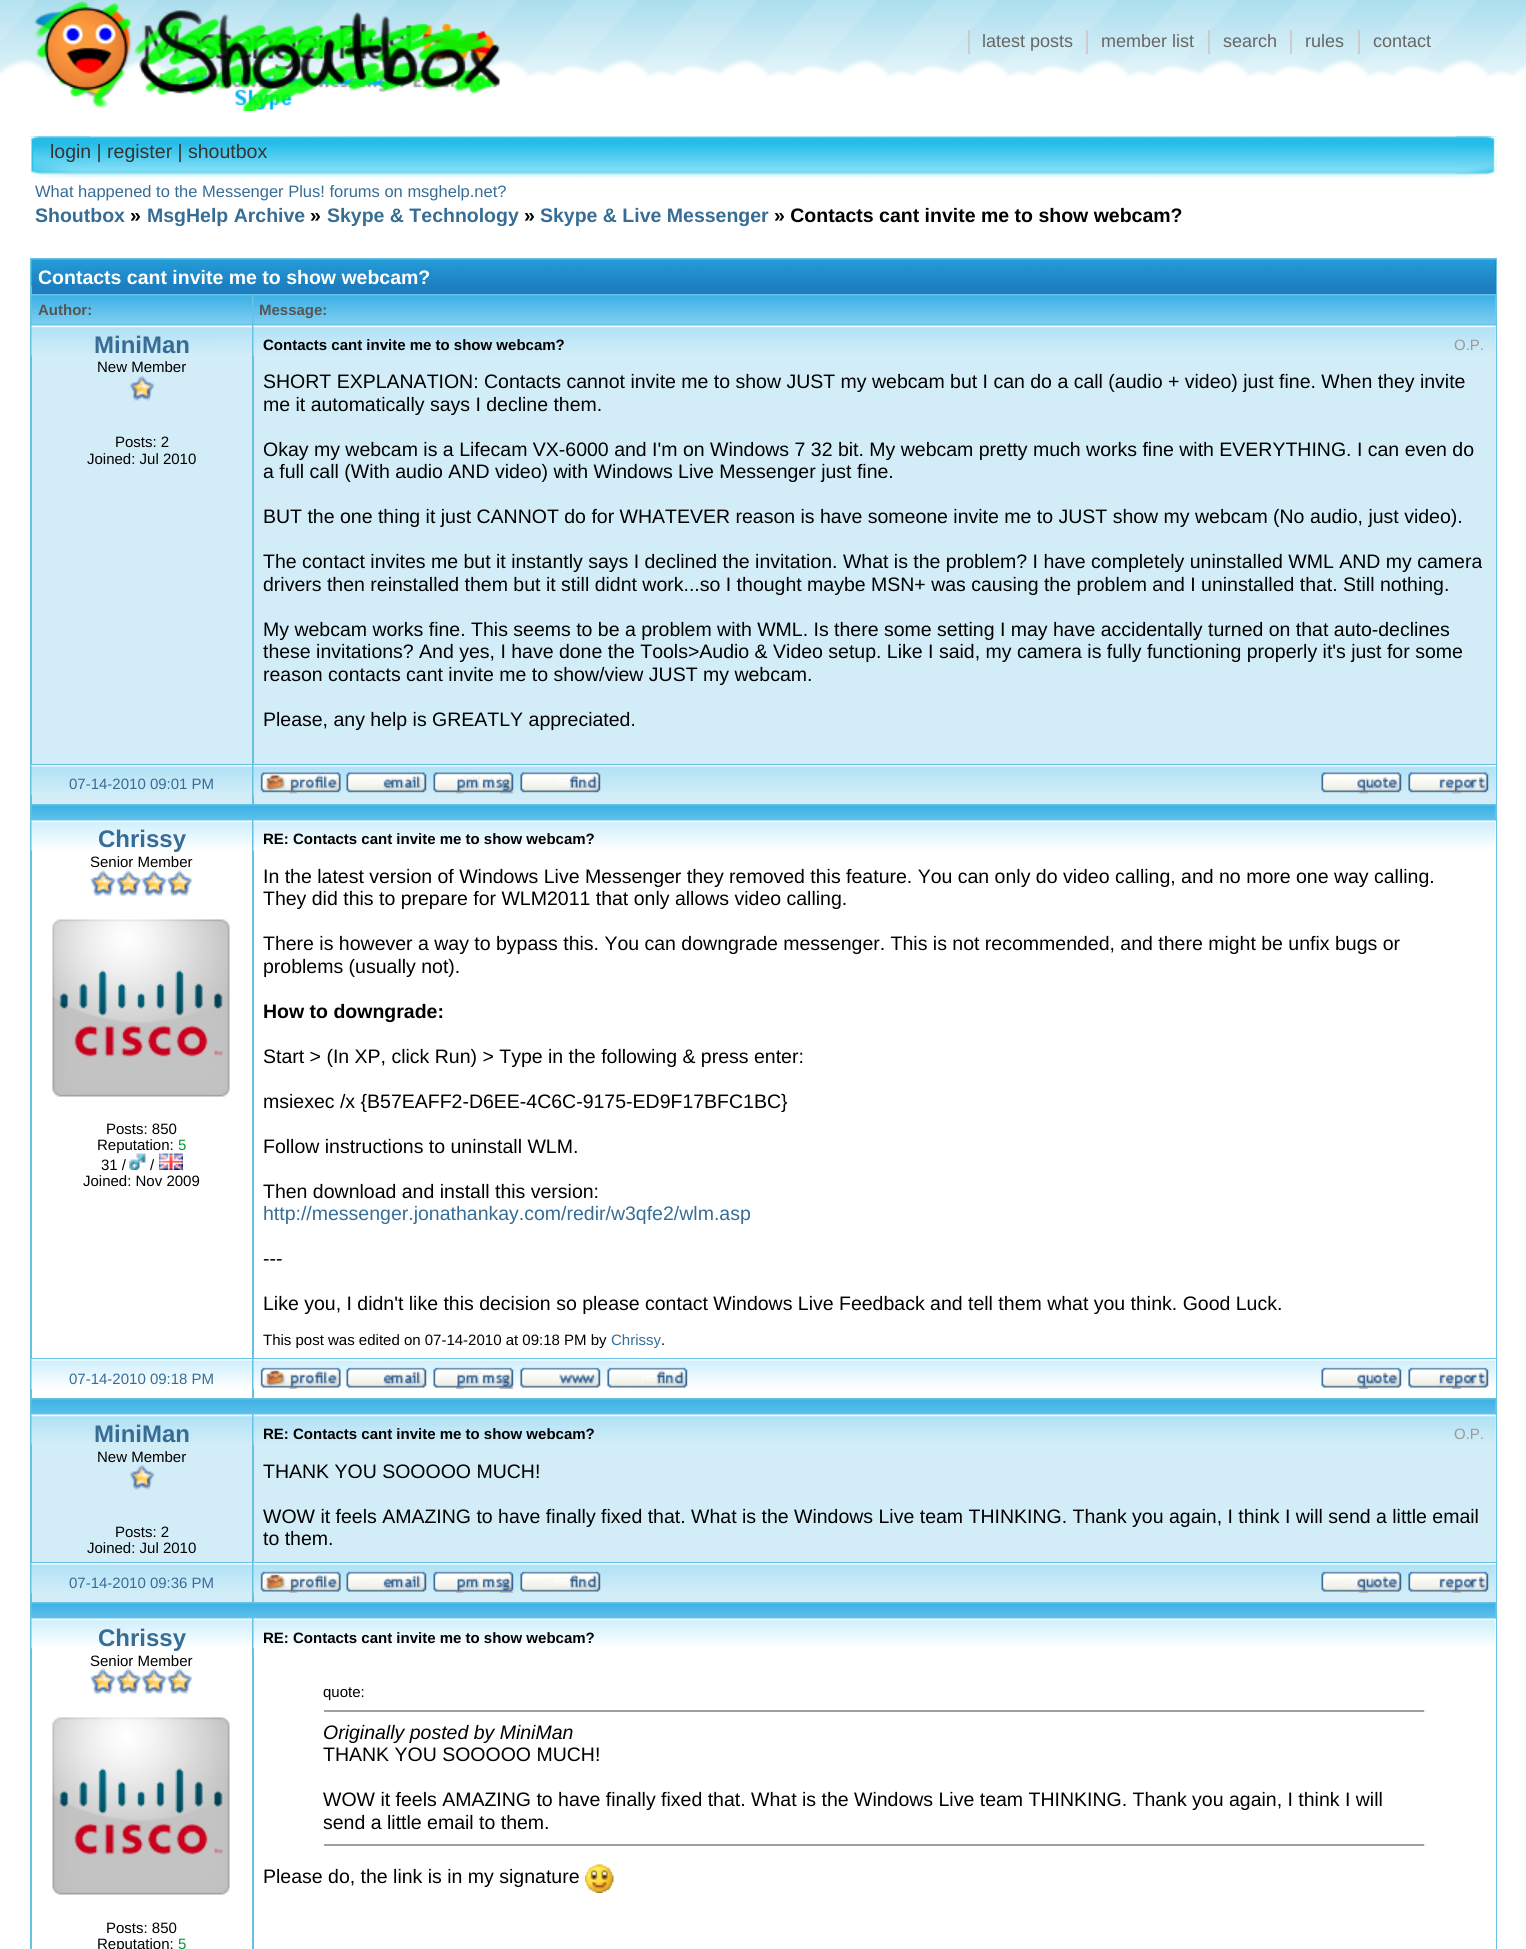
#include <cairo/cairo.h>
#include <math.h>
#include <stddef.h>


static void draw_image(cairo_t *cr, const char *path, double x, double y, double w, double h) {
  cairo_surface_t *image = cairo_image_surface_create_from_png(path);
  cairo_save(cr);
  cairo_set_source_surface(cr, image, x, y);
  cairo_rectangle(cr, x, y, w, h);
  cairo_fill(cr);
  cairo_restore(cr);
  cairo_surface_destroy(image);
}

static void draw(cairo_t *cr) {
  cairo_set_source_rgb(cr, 1, 1, 1);
  cairo_paint(cr);
  draw_image(cr, "images/1.png", 0, 0, 1526, 77);
  draw_image(cr, "images/2.png", 34, 1, 466, 110);
  cairo_set_source_rgb(cr, 204 / 255.0, 204 / 255.0, 204 / 255.0);
  cairo_rectangle(cr, 968, 30, 2, 24);
  cairo_fill(cr);
  cairo_rectangle(cr, 1086, 30, 2, 24);
  cairo_fill(cr);
  cairo_rectangle(cr, 1208, 30, 2, 24);
  cairo_fill(cr);
  cairo_rectangle(cr, 1290, 30, 2, 24);
  cairo_fill(cr);
  cairo_rectangle(cr, 1358, 30, 2, 24);
  cairo_fill(cr);
  draw_image(cr, "images/3.png", 30, 136, 1467, 42);
  draw_image(cr, "images/4.png", 1456, 136, 41, 43);
  draw_image(cr, "images/5.png", 30, 136, 60, 42);
  cairo_set_source_rgb(cr, 103 / 255.0, 193 / 255.0, 228 / 255.0);
  cairo_rectangle(cr, 30, 258, 1467, 1691);
  cairo_fill(cr);
  cairo_set_source_rgb(cr, 29 / 255.0, 127 / 255.0, 191 / 255.0);
  cairo_rectangle(cr, 32, 260, 1464, 34);
  cairo_fill(cr);
  draw_image(cr, "images/6.png", 31, 259, 1465, 28);
  cairo_set_source_rgb(cr, 121 / 255.0, 204 / 255.0, 240 / 255.0);
  cairo_rectangle(cr, 32, 322, 220, 2);
  cairo_fill(cr);
  draw_image(cr, "images/7.png", 31, 295, 221, 28);
  cairo_rectangle(cr, 254, 296, 1242, 28);
  cairo_fill(cr);
  draw_image(cr, "images/8.png", 253, 295, 1243, 28);
  cairo_set_source_rgb(cr, 210 / 255.0, 237 / 255.0, 247 / 255.0);
  cairo_rectangle(cr, 32, 355, 220, 409);
  cairo_fill(cr);
  draw_image(cr, "images/9.png", 31, 325, 221, 31);
  draw_image(cr, "images/10.png", 129, 375, 26, 26);
  cairo_rectangle(cr, 254, 326, 1242, 438);
  cairo_fill(cr);
  draw_image(cr, "images/11.png", 253, 325, 1243, 31);
  cairo_rectangle(cr, 32, 795, 220, 9);
  cairo_fill(cr);
  draw_image(cr, "images/12.png", 31, 765, 221, 30);
  cairo_rectangle(cr, 254, 765, 1242, 39);
  cairo_fill(cr);
  draw_image(cr, "images/13.png", 253, 765, 1243, 30);
  draw_image(cr, "images/14.png", 260, 772, 81, 22);
  draw_image(cr, "images/15.png", 346, 772, 81, 21);
  draw_image(cr, "images/16.png", 433, 772, 81, 22);
  draw_image(cr, "images/17.png", 520, 772, 81, 21);
  draw_image(cr, "images/18.png", 1321, 772, 81, 22);
  draw_image(cr, "images/19.png", 1408, 772, 81, 22);
  cairo_set_source_rgb(cr, 121 / 255.0, 204 / 255.0, 240 / 255.0);
  cairo_rectangle(cr, 1495, 806, 1, 13);
  cairo_fill(cr);
  draw_image(cr, "images/20.png", 31, 805, 1465, 14);
  cairo_set_source_rgb(cr, 1, 1, 1);
  cairo_rectangle(cr, 32, 850, 220, 508);
  cairo_fill(cr);
  draw_image(cr, "images/21.png", 31, 820, 221, 31);
  draw_image(cr, "images/22.png", 90, 870, 26, 26);
  draw_image(cr, "images/23.png", 115, 870, 26, 26);
  draw_image(cr, "images/22.png", 141, 870, 26, 26);
  draw_image(cr, "images/23.png", 166, 870, 26, 26);
  draw_image(cr, "images/24.png", 52, 919, 178, 178);
  cairo_rectangle(cr, 254, 821, 1242, 537);
  cairo_fill(cr);
  draw_image(cr, "images/27.png", 253, 820, 1243, 31);
  cairo_rectangle(cr, 32, 1389, 220, 9);
  cairo_fill(cr);
  draw_image(cr, "images/28.png", 31, 1359, 221, 30);
  cairo_rectangle(cr, 254, 1359, 1242, 39);
  cairo_fill(cr);
  draw_image(cr, "images/29.png", 253, 1359, 1243, 30);
  draw_image(cr, "images/30.png", 260, 1367, 81, 22);
  draw_image(cr, "images/31.png", 346, 1367, 81, 21);
  draw_image(cr, "images/32.png", 433, 1367, 81, 22);
  draw_image(cr, "images/33.png", 520, 1367, 81, 21);
  draw_image(cr, "images/34.png", 607, 1367, 81, 21);
  draw_image(cr, "images/35.png", 1321, 1367, 81, 22);
  draw_image(cr, "images/36.png", 1408, 1367, 81, 22);
  cairo_set_source_rgb(cr, 121 / 255.0, 204 / 255.0, 240 / 255.0);
  cairo_rectangle(cr, 1495, 1400, 1, 13);
  cairo_fill(cr);
  draw_image(cr, "images/37.png", 31, 1399, 1465, 14);
  cairo_set_source_rgb(cr, 210 / 255.0, 237 / 255.0, 247 / 255.0);
  cairo_rectangle(cr, 32, 1444, 220, 118);
  cairo_fill(cr);
  draw_image(cr, "images/38.png", 31, 1414, 221, 31);
  draw_image(cr, "images/10.png", 129, 1464, 26, 26);
  cairo_rectangle(cr, 254, 1415, 1242, 147);
  cairo_fill(cr);
  draw_image(cr, "images/39.png", 253, 1414, 1243, 31);
  cairo_rectangle(cr, 32, 1593, 220, 9);
  cairo_fill(cr);
  draw_image(cr, "images/40.png", 31, 1563, 221, 30);
  cairo_rectangle(cr, 254, 1563, 1242, 39);
  cairo_fill(cr);
  draw_image(cr, "images/41.png", 253, 1563, 1243, 30);
  draw_image(cr, "images/42.png", 260, 1571, 81, 22);
  draw_image(cr, "images/43.png", 346, 1571, 81, 21);
  draw_image(cr, "images/44.png", 433, 1571, 81, 22);
  draw_image(cr, "images/45.png", 520, 1571, 81, 21);
  draw_image(cr, "images/46.png", 1321, 1571, 81, 22);
  draw_image(cr, "images/47.png", 1408, 1571, 81, 22);
  cairo_set_source_rgb(cr, 121 / 255.0, 204 / 255.0, 240 / 255.0);
  cairo_rectangle(cr, 1495, 1604, 1, 13);
  cairo_fill(cr);
  draw_image(cr, "images/48.png", 31, 1603, 1465, 14);
  cairo_set_source_rgb(cr, 1, 1, 1);
  cairo_rectangle(cr, 32, 1648, 220, 301);
  cairo_fill(cr);
  draw_image(cr, "images/21.png", 31, 1618, 221, 31);
  draw_image(cr, "images/22.png", 90, 1668, 26, 26);
  draw_image(cr, "images/23.png", 115, 1668, 26, 26);
  draw_image(cr, "images/22.png", 141, 1668, 26, 26);
  draw_image(cr, "images/23.png", 166, 1668, 26, 26);
  draw_image(cr, "images/24.png", 52, 1717, 178, 178);
  cairo_rectangle(cr, 254, 1619, 1242, 330);
  cairo_fill(cr);
  draw_image(cr, "images/27.png", 253, 1618, 1243, 31);
  cairo_set_source_rgb(cr, 159 / 255.0, 159 / 255.0, 159 / 255.0);
  cairo_rectangle(cr, 324, 1710, 1101, 2);
  cairo_fill(cr);
  cairo_set_source_rgb(cr, 238 / 255.0, 238 / 255.0, 238 / 255.0);
  cairo_rectangle(cr, 1424, 1710, 2, 2);
  cairo_fill(cr);
  cairo_set_source_rgb(cr, 159 / 255.0, 159 / 255.0, 159 / 255.0);
  cairo_rectangle(cr, 324, 1844, 1101, 2);
  cairo_fill(cr);
  cairo_set_source_rgb(cr, 238 / 255.0, 238 / 255.0, 238 / 255.0);
  cairo_rectangle(cr, 1424, 1844, 2, 2);
  cairo_fill(cr);
  draw_image(cr, "images/49.png", 585, 1864, 29, 29);
  cairo_select_font_face(cr, "Liberation Sans", CAIRO_FONT_SLANT_NORMAL, CAIRO_FONT_WEIGHT_NORMAL);
  cairo_set_font_size(cr, 18);
  cairo_set_source_rgb(cr, 102 / 255.0, 102 / 255.0, 102 / 255.0);
  cairo_move_to(cr, 982, 47);
  cairo_show_text(cr, "latest posts");
  cairo_move_to(cr, 1101, 47);
  cairo_show_text(cr, "member list");
  cairo_move_to(cr, 1223, 47);
  cairo_show_text(cr, "search");
  cairo_move_to(cr, 1305, 47);
  cairo_show_text(cr, "rules");
  cairo_move_to(cr, 1373, 47);
  cairo_show_text(cr, "contact");
  cairo_set_font_size(cr, 19.5);
  cairo_set_source_rgb(cr, 51 / 255.0, 51 / 255.0, 51 / 255.0);
  cairo_move_to(cr, 50, 158);
  cairo_show_text(cr, "login | register | shoutbox");
  cairo_set_font_size(cr, 16.5);
  cairo_set_source_rgb(cr, 55 / 255.0, 109 / 255.0, 149 / 255.0);
  cairo_move_to(cr, 35, 197);
  cairo_show_text(cr, "What happened to the Messenger Plus! forums on msghelp.net?");
  cairo_select_font_face(cr, "Liberation Sans", CAIRO_FONT_SLANT_NORMAL, CAIRO_FONT_WEIGHT_BOLD);
  cairo_set_font_size(cr, 19.5);
  cairo_move_to(cr, 35, 222);
  cairo_show_text(cr, "Shoutbox");
  cairo_set_source_rgb(cr, 0, 0, 0);
  cairo_move_to(cr, 130, 222);
  cairo_show_text(cr, "»");
  cairo_set_source_rgb(cr, 55 / 255.0, 109 / 255.0, 149 / 255.0);
  cairo_move_to(cr, 147, 222);
  cairo_show_text(cr, "MsgHelp Archive");
  cairo_set_source_rgb(cr, 0, 0, 0);
  cairo_move_to(cr, 310, 222);
  cairo_show_text(cr, "»");
  cairo_set_source_rgb(cr, 55 / 255.0, 109 / 255.0, 149 / 255.0);
  cairo_move_to(cr, 327, 222);
  cairo_show_text(cr, "Skype & Technology");
  cairo_set_source_rgb(cr, 0, 0, 0);
  cairo_move_to(cr, 524, 222);
  cairo_show_text(cr, "»");
  cairo_set_source_rgb(cr, 55 / 255.0, 109 / 255.0, 149 / 255.0);
  cairo_move_to(cr, 540, 222);
  cairo_show_text(cr, "Skype & Live Messenger");
  cairo_set_source_rgb(cr, 0, 0, 0);
  cairo_move_to(cr, 774, 222);
  cairo_show_text(cr, "» Contacts cant invite me to show webcam?");
  cairo_set_source_rgb(cr, 1, 1, 1);
  cairo_move_to(cr, 38, 284);
  cairo_show_text(cr, "Contacts cant invite me to show webcam?");
  cairo_set_font_size(cr, 15);
  cairo_set_source_rgb(cr, 85 / 255.0, 85 / 255.0, 85 / 255.0);
  cairo_move_to(cr, 38, 315);
  cairo_show_text(cr, "Author:");
  cairo_move_to(cr, 259, 315);
  cairo_show_text(cr, "Message:");
  cairo_set_font_size(cr, 24);
  cairo_set_source_rgb(cr, 55 / 255.0, 109 / 255.0, 149 / 255.0);
  cairo_move_to(cr, 94, 353);
  cairo_show_text(cr, "MiniMan");
  cairo_select_font_face(cr, "Liberation Sans", CAIRO_FONT_SLANT_NORMAL, CAIRO_FONT_WEIGHT_NORMAL);
  cairo_set_font_size(cr, 15);
  cairo_set_source_rgb(cr, 0, 0, 0);
  cairo_move_to(cr, 97, 372);
  cairo_show_text(cr, "New Member");
  cairo_move_to(cr, 115, 447);
  cairo_show_text(cr, "Posts: 2");
  cairo_move_to(cr, 87, 464);
  cairo_show_text(cr, "Joined: Jul 2010");
  cairo_select_font_face(cr, "Liberation Sans", CAIRO_FONT_SLANT_NORMAL, CAIRO_FONT_WEIGHT_BOLD);
  cairo_move_to(cr, 263, 350);
  cairo_show_text(cr, "Contacts cant invite me to show webcam?");
  cairo_select_font_face(cr, "Liberation Sans", CAIRO_FONT_SLANT_NORMAL, CAIRO_FONT_WEIGHT_NORMAL);
  cairo_set_source_rgb(cr, 153 / 255.0, 153 / 255.0, 153 / 255.0);
  cairo_move_to(cr, 1454, 350);
  cairo_show_text(cr, "O.P.");
  cairo_set_font_size(cr, 19.5);
  cairo_set_source_rgb(cr, 0, 0, 0);
  cairo_move_to(cr, 263, 388);
  cairo_show_text(cr, "SHORT EXPLANATION: Contacts cannot invite me to show JUST my webcam but I can do a call (audio + video) just fine. When they invite");
  cairo_move_to(cr, 263, 411);
  cairo_show_text(cr, "me it automatically says I decline them.");
  cairo_move_to(cr, 263, 456);
  cairo_show_text(cr, "Okay my webcam is a Lifecam VX-6000 and I'm on Windows 7 32 bit. My webcam pretty much works fine with EVERYTHING. I can even do");
  cairo_move_to(cr, 263, 478);
  cairo_show_text(cr, "a full call (With audio AND video) with Windows Live Messenger just fine.");
  cairo_move_to(cr, 263, 523);
  cairo_show_text(cr, "BUT the one thing it just CANNOT do for WHATEVER reason is have someone invite me to JUST show my webcam (No audio, just video).");
  cairo_move_to(cr, 263, 568);
  cairo_show_text(cr, "The contact invites me but it instantly says I declined the invitation. What is the problem? I have completely uninstalled WML AND my camera");
  cairo_move_to(cr, 263, 591);
  cairo_show_text(cr, "drivers then reinstalled them but it still didnt work...so I thought maybe MSN+ was causing the problem and I uninstalled that. Still nothing.");
  cairo_move_to(cr, 263, 636);
  cairo_show_text(cr, "My webcam works fine. This seems to be a problem with WML. Is there some setting I may have accidentally turned on that auto-declines");
  cairo_move_to(cr, 263, 658);
  cairo_show_text(cr, "these invitations? And yes, I have done the Tools>Audio & Video setup. Like I said, my camera is fully functioning properly it's just for some");
  cairo_move_to(cr, 263, 681);
  cairo_show_text(cr, "reason contacts cant invite me to show/view JUST my webcam.");
  cairo_move_to(cr, 263, 726);
  cairo_show_text(cr, "Please, any help is GREATLY appreciated.");
  cairo_set_font_size(cr, 15);
  cairo_set_source_rgb(cr, 55 / 255.0, 109 / 255.0, 149 / 255.0);
  cairo_move_to(cr, 69, 789);
  cairo_show_text(cr, "07-14-2010 09:01 PM");
  cairo_select_font_face(cr, "Liberation Sans", CAIRO_FONT_SLANT_NORMAL, CAIRO_FONT_WEIGHT_BOLD);
  cairo_set_font_size(cr, 24);
  cairo_move_to(cr, 98, 847);
  cairo_show_text(cr, "Chrissy");
  cairo_select_font_face(cr, "Liberation Sans", CAIRO_FONT_SLANT_NORMAL, CAIRO_FONT_WEIGHT_NORMAL);
  cairo_set_font_size(cr, 15);
  cairo_set_source_rgb(cr, 0, 0, 0);
  cairo_move_to(cr, 90, 867);
  cairo_show_text(cr, "Senior Member");
  cairo_move_to(cr, 106, 1134);
  cairo_show_text(cr, "Posts: 850");
  cairo_move_to(cr, 97, 1150);
  cairo_show_text(cr, "Reputation:");
  cairo_set_source_rgb(cr, 0, 153 / 255.0, 51 / 255.0);
  cairo_move_to(cr, 178, 1150);
  cairo_show_text(cr, "5");
  cairo_set_source_rgb(cr, 0, 0, 0);
  cairo_move_to(cr, 101, 1170);
  cairo_show_text(cr, "31 /");
  draw_image(cr, "images/25.png", 129, 1153, 17, 17);
  cairo_move_to(cr, 150, 1170);
  cairo_show_text(cr, "/");
  draw_image(cr, "images/26.png", 159, 1153, 24, 17);
  cairo_move_to(cr, 83, 1186);
  cairo_show_text(cr, "Joined: Nov 2009");
  cairo_select_font_face(cr, "Liberation Sans", CAIRO_FONT_SLANT_NORMAL, CAIRO_FONT_WEIGHT_BOLD);
  cairo_move_to(cr, 263, 844);
  cairo_show_text(cr, "RE: Contacts cant invite me to show webcam?");
  cairo_select_font_face(cr, "Liberation Sans", CAIRO_FONT_SLANT_NORMAL, CAIRO_FONT_WEIGHT_NORMAL);
  cairo_set_font_size(cr, 19.5);
  cairo_move_to(cr, 263, 883);
  cairo_show_text(cr, "In the latest version of Windows Live Messenger they removed this feature. You can only do video calling, and no more one way calling.");
  cairo_move_to(cr, 263, 905);
  cairo_show_text(cr, "They did this to prepare for WLM2011 that only allows video calling.");
  cairo_move_to(cr, 263, 950);
  cairo_show_text(cr, "There is however a way to bypass this. You can downgrade messenger. This is not recommended, and there might be unfix bugs or");
  cairo_move_to(cr, 263, 973);
  cairo_show_text(cr, "problems (usually not).");
  cairo_select_font_face(cr, "Liberation Sans", CAIRO_FONT_SLANT_NORMAL, CAIRO_FONT_WEIGHT_BOLD);
  cairo_move_to(cr, 263, 1018);
  cairo_show_text(cr, "How to downgrade:");
  cairo_select_font_face(cr, "Liberation Sans", CAIRO_FONT_SLANT_NORMAL, CAIRO_FONT_WEIGHT_NORMAL);
  cairo_move_to(cr, 263, 1063);
  cairo_show_text(cr, "Start > (In XP, click Run) > Type in the following & press enter:");
  cairo_move_to(cr, 263, 1108);
  cairo_show_text(cr, "msiexec /x {B57EAFF2-D6EE-4C6C-9175-ED9F17BFC1BC}");
  cairo_move_to(cr, 263, 1153);
  cairo_show_text(cr, "Follow instructions to uninstall WLM.");
  cairo_move_to(cr, 263, 1198);
  cairo_show_text(cr, "Then download and install this version:");
  cairo_set_source_rgb(cr, 55 / 255.0, 109 / 255.0, 149 / 255.0);
  cairo_move_to(cr, 263, 1220);
  cairo_show_text(cr, "http://messenger.jonathankay.com/redir/w3qfe2/wlm.asp");
  cairo_set_source_rgb(cr, 0, 0, 0);
  cairo_move_to(cr, 263, 1265);
  cairo_show_text(cr, "---");
  cairo_move_to(cr, 263, 1310);
  cairo_show_text(cr, "Like you, I didn't like this decision so please contact Windows Live Feedback and tell them what you think. Good Luck.");
  cairo_set_font_size(cr, 15);
  cairo_move_to(cr, 263, 1345);
  cairo_show_text(cr, "This post was edited on 07-14-2010 at 09:18 PM by");
  cairo_set_source_rgb(cr, 55 / 255.0, 109 / 255.0, 149 / 255.0);
  cairo_move_to(cr, 611, 1345);
  cairo_show_text(cr, "Chrissy");
  cairo_set_source_rgb(cr, 0, 0, 0);
  cairo_move_to(cr, 661, 1345);
  cairo_show_text(cr, ".");
  cairo_set_source_rgb(cr, 55 / 255.0, 109 / 255.0, 149 / 255.0);
  cairo_move_to(cr, 69, 1384);
  cairo_show_text(cr, "07-14-2010 09:18 PM");
  cairo_select_font_face(cr, "Liberation Sans", CAIRO_FONT_SLANT_NORMAL, CAIRO_FONT_WEIGHT_BOLD);
  cairo_set_font_size(cr, 24);
  cairo_move_to(cr, 94, 1442);
  cairo_show_text(cr, "MiniMan");
  cairo_select_font_face(cr, "Liberation Sans", CAIRO_FONT_SLANT_NORMAL, CAIRO_FONT_WEIGHT_NORMAL);
  cairo_set_font_size(cr, 15);
  cairo_set_source_rgb(cr, 0, 0, 0);
  cairo_move_to(cr, 97, 1462);
  cairo_show_text(cr, "New Member");
  cairo_move_to(cr, 115, 1537);
  cairo_show_text(cr, "Posts: 2");
  cairo_move_to(cr, 87, 1553);
  cairo_show_text(cr, "Joined: Jul 2010");
  cairo_select_font_face(cr, "Liberation Sans", CAIRO_FONT_SLANT_NORMAL, CAIRO_FONT_WEIGHT_BOLD);
  cairo_move_to(cr, 263, 1439);
  cairo_show_text(cr, "RE: Contacts cant invite me to show webcam?");
  cairo_select_font_face(cr, "Liberation Sans", CAIRO_FONT_SLANT_NORMAL, CAIRO_FONT_WEIGHT_NORMAL);
  cairo_set_source_rgb(cr, 153 / 255.0, 153 / 255.0, 153 / 255.0);
  cairo_move_to(cr, 1454, 1439);
  cairo_show_text(cr, "O.P.");
  cairo_set_font_size(cr, 19.5);
  cairo_set_source_rgb(cr, 0, 0, 0);
  cairo_move_to(cr, 263, 1478);
  cairo_show_text(cr, "THANK YOU SOOOOO MUCH!");
  cairo_move_to(cr, 263, 1523);
  cairo_show_text(cr, "WOW it feels AMAZING to have finally fixed that. What is the Windows Live team THINKING. Thank you again, I think I will send a little email");
  cairo_move_to(cr, 263, 1545);
  cairo_show_text(cr, "to them.");
  cairo_set_font_size(cr, 15);
  cairo_set_source_rgb(cr, 55 / 255.0, 109 / 255.0, 149 / 255.0);
  cairo_move_to(cr, 69, 1588);
  cairo_show_text(cr, "07-14-2010 09:36 PM");
  cairo_select_font_face(cr, "Liberation Sans", CAIRO_FONT_SLANT_NORMAL, CAIRO_FONT_WEIGHT_BOLD);
  cairo_set_font_size(cr, 24);
  cairo_move_to(cr, 98, 1646);
  cairo_show_text(cr, "Chrissy");
  cairo_select_font_face(cr, "Liberation Sans", CAIRO_FONT_SLANT_NORMAL, CAIRO_FONT_WEIGHT_NORMAL);
  cairo_set_font_size(cr, 15);
  cairo_set_source_rgb(cr, 0, 0, 0);
  cairo_move_to(cr, 90, 1666);
  cairo_show_text(cr, "Senior Member");
  cairo_move_to(cr, 106, 1933);
  cairo_show_text(cr, "Posts: 850");
  cairo_move_to(cr, 97, 1949);
  cairo_show_text(cr, "Reputation:");
  cairo_set_source_rgb(cr, 0, 153 / 255.0, 51 / 255.0);
  cairo_move_to(cr, 178, 1949);
  cairo_show_text(cr, "5");
  cairo_select_font_face(cr, "Liberation Sans", CAIRO_FONT_SLANT_NORMAL, CAIRO_FONT_WEIGHT_BOLD);
  cairo_set_source_rgb(cr, 0, 0, 0);
  cairo_move_to(cr, 263, 1643);
  cairo_show_text(cr, "RE: Contacts cant invite me to show webcam?");
  cairo_select_font_face(cr, "Liberation Sans", CAIRO_FONT_SLANT_NORMAL, CAIRO_FONT_WEIGHT_NORMAL);
  cairo_move_to(cr, 323, 1697);
  cairo_show_text(cr, "quote:");
  cairo_select_font_face(cr, "Liberation Sans", CAIRO_FONT_SLANT_ITALIC, CAIRO_FONT_WEIGHT_NORMAL);
  cairo_set_font_size(cr, 19.5);
  cairo_move_to(cr, 323, 1739);
  cairo_show_text(cr, "Originally posted by MiniMan");
  cairo_select_font_face(cr, "Liberation Sans", CAIRO_FONT_SLANT_NORMAL, CAIRO_FONT_WEIGHT_NORMAL);
  cairo_move_to(cr, 323, 1761);
  cairo_show_text(cr, "THANK YOU SOOOOO MUCH!");
  cairo_move_to(cr, 323, 1806);
  cairo_show_text(cr, "WOW it feels AMAZING to have finally fixed that. What is the Windows Live team THINKING. Thank you again, I think I will");
  cairo_move_to(cr, 323, 1829);
  cairo_show_text(cr, "send a little email to them.");
  cairo_move_to(cr, 263, 1883);
  cairo_show_text(cr, "Please do, the link is in my signature");
}

int main(void) {
  cairo_surface_t *surface = cairo_image_surface_create(CAIRO_FORMAT_RGB24, 1526, 1949);
  cairo_t *cr = cairo_create(surface);
  cairo_font_options_t *options = cairo_font_options_create();
  cairo_font_options_set_hint_metrics(options, CAIRO_HINT_METRICS_OFF);
  cairo_font_options_set_hint_style(options, CAIRO_HINT_STYLE_NONE);
  cairo_set_font_options(cr, options);
  cairo_set_miter_limit(cr, 4);
  draw(cr);
  cairo_surface_write_to_png(surface, "out.png");
  cairo_font_options_destroy(options);
  cairo_destroy(cr);
  cairo_surface_destroy(surface);
  return 0;
}
